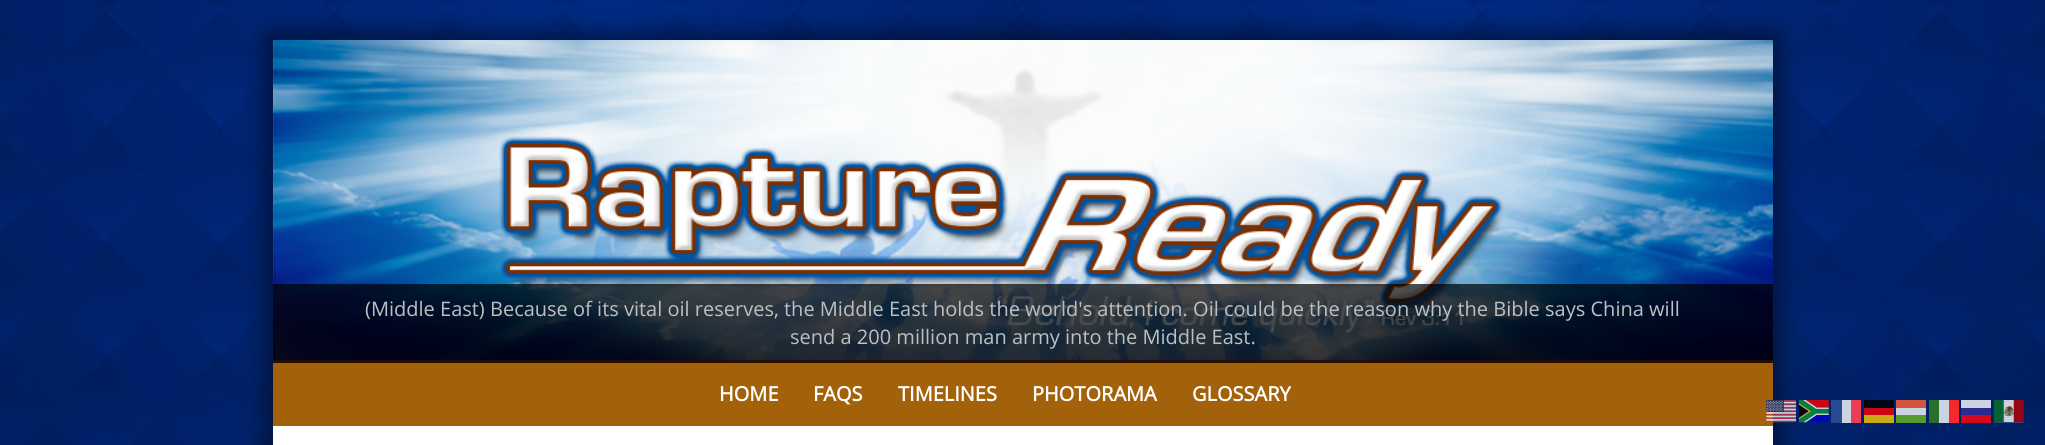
#include <cairo/cairo.h>
#include <math.h>
#include <stddef.h>


static void rounded_rect(cairo_t *cr, double x, double y, double w, double h, double r) {
  cairo_new_sub_path(cr);
  cairo_arc(cr, x + w - r, y + h - r, r, 0, M_PI / 2);
  cairo_arc(cr, x + r, y + h - r, r, M_PI / 2, M_PI);
  cairo_arc(cr, x + r, y + r, r, M_PI, 1.5 * M_PI);
  cairo_arc(cr, x + w - r, y + r, r, 1.5 * M_PI, 2 * M_PI);
  cairo_close_path(cr);
}

static void draw_shadow(cairo_t *cr, double x, double y, double w, double h, double r, double blur, double alpha) {
  cairo_push_group_with_content(cr, CAIRO_CONTENT_ALPHA);
  cairo_set_operator(cr, CAIRO_OPERATOR_SOURCE);
  for (int i = 15; i >= -15 && fmin(w, h) + blur * i / 3 > 0; i -= 2) {
    double e = blur * i / 6;
    cairo_set_source_rgba(cr, 0, 0, 0, alpha * erfc((i - 1) / 8.5) / 2);
    rounded_rect(cr, x - e, y - e, w + 2 * e, h + 2 * e, fmax(0, fmin(r + e + blur * .6, fmin(w, h) / 2 + e)));
    cairo_fill(cr);
  }
  cairo_pattern_t *soft = cairo_pop_group(cr);
  cairo_mask(cr, soft);
  cairo_pattern_destroy(soft);
}

static void draw_image(cairo_t *cr, const char *path, double x, double y, double w, double h) {
  cairo_surface_t *image = cairo_image_surface_create_from_png(path);
  cairo_save(cr);
  cairo_set_source_surface(cr, image, x, y);
  cairo_rectangle(cr, x, y, w, h);
  cairo_fill(cr);
  cairo_restore(cr);
  cairo_surface_destroy(image);
}

static void draw(cairo_t *cr) {
  cairo_set_source_rgb(cr, 1, 1, 1);
  cairo_paint(cr);
  draw_image(cr, "images/1.png", 0, 0, 2045, 445);
  cairo_set_source_rgb(cr, 0, 0, 0);
  draw_shadow(cr, 266, 34, 1513, 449, 0, 12.5, 0.5);
  draw_image(cr, "images/2.png", 273, 40, 1500, 323);
  cairo_set_source_rgba(cr, 0, 0, 0, 0.7);
  cairo_rectangle(cr, 273, 284, 1500, 79);
  cairo_fill(cr);
  cairo_set_source_rgb(cr, 163 / 255.0, 98 / 255.0, 10 / 255.0);
  cairo_rectangle(cr, 273, 363, 1500, 63);
  cairo_fill(cr);
  cairo_set_source_rgb(cr, 1, 1, 1);
  cairo_rectangle(cr, 273, 426, 1500, 19);
  cairo_fill(cr);
  draw_image(cr, "images/3.png", 1766, 400, 30, 23);
  draw_image(cr, "images/4.png", 1799, 400, 30, 23);
  cairo_set_source_rgb(cr, 41 / 255.0, 73 / 255.0, 147 / 255.0);
  cairo_rectangle(cr, 1831, 400, 11, 23);
  cairo_fill(cr);
  cairo_set_source_rgba(cr, 1, 1, 1, 0.8);
  cairo_rectangle(cr, 1842, 400, 9, 23);
  cairo_fill(cr);
  cairo_set_source_rgb(cr, 235 / 255.0, 61 / 255.0, 83 / 255.0);
  cairo_rectangle(cr, 1851, 400, 10, 23);
  cairo_fill(cr);
  cairo_set_source_rgba(cr, 0, 0, 0, 0.8);
  cairo_rectangle(cr, 1864, 400, 30, 8);
  cairo_fill(cr);
  cairo_set_source_rgb(cr, 210 / 255.0, 85 / 255.0, 63 / 255.0);
  cairo_rectangle(cr, 1896, 400, 30, 8);
  cairo_fill(cr);
  cairo_set_source_rgb(cr, 41 / 255.0, 112 / 255.0, 45 / 255.0);
  cairo_rectangle(cr, 1929, 400, 10, 23);
  cairo_fill(cr);
  cairo_set_source_rgba(cr, 1, 1, 1, 0.8);
  cairo_rectangle(cr, 1939, 400, 10, 23);
  cairo_fill(cr);
  cairo_set_source_rgb(cr, 242 / 255.0, 42 / 255.0, 45 / 255.0);
  cairo_rectangle(cr, 1949, 400, 10, 23);
  cairo_fill(cr);
  cairo_set_source_rgba(cr, 1, 1, 1, 0.8);
  cairo_rectangle(cr, 1961, 400, 30, 8);
  cairo_fill(cr);
  draw_image(cr, "images/5.png", 1993, 400, 31, 23);
  cairo_set_source_rgba(cr, 1, 0, 0, 0.8);
  cairo_rectangle(cr, 1864, 408, 30, 7);
  cairo_fill(cr);
  cairo_set_source_rgba(cr, 1, 1, 1, 0.8);
  cairo_rectangle(cr, 1896, 408, 30, 7);
  cairo_fill(cr);
  cairo_set_source_rgb(cr, 42 / 255.0, 43 / 255.0, 146 / 255.0);
  cairo_rectangle(cr, 1961, 408, 30, 7);
  cairo_fill(cr);
  cairo_set_source_rgb(cr, 204 / 255.0, 170 / 255.0, 21 / 255.0);
  cairo_rectangle(cr, 1864, 415, 30, 8);
  cairo_fill(cr);
  cairo_set_source_rgb(cr, 86 / 255.0, 155 / 255.0, 45 / 255.0);
  cairo_rectangle(cr, 1896, 415, 30, 8);
  cairo_fill(cr);
  cairo_set_source_rgb(cr, 212 / 255.0, 9 / 255.0, 30 / 255.0);
  cairo_rectangle(cr, 1961, 415, 30, 8);
  cairo_fill(cr);
  cairo_select_font_face(cr, "Open Sans", CAIRO_FONT_SLANT_NORMAL, CAIRO_FONT_WEIGHT_NORMAL);
  cairo_set_font_size(cr, 20);
  cairo_set_source_rgb(cr, 188 / 255.0, 192 / 255.0, 195 / 255.0);
  cairo_move_to(cr, 365, 316);
  cairo_show_text(cr, "(Middle East) Because of its vital oil reserves, the Middle East holds the world's attention. Oil could be the reason why the Bible says China will");
  cairo_move_to(cr, 790, 344);
  cairo_show_text(cr, "send a 200 million man army into the Middle East.");
  cairo_select_font_face(cr, "Open Sans", CAIRO_FONT_SLANT_NORMAL, CAIRO_FONT_WEIGHT_BOLD);
  cairo_set_source_rgb(cr, 1, 1, 1);
  cairo_move_to(cr, 719, 401);
  cairo_show_text(cr, "HOME");
  cairo_move_to(cr, 813, 401);
  cairo_show_text(cr, "FAQS");
  cairo_move_to(cr, 898, 401);
  cairo_show_text(cr, "TIMELINES");
  cairo_move_to(cr, 1032, 401);
  cairo_show_text(cr, "PHOTORAMA");
  cairo_move_to(cr, 1192, 401);
  cairo_show_text(cr, "GLOSSARY");
}

int main(void) {
  cairo_surface_t *surface = cairo_image_surface_create(CAIRO_FORMAT_RGB24, 2045, 445);
  cairo_t *cr = cairo_create(surface);
  cairo_font_options_t *options = cairo_font_options_create();
  cairo_font_options_set_hint_metrics(options, CAIRO_HINT_METRICS_OFF);
  cairo_font_options_set_hint_style(options, CAIRO_HINT_STYLE_NONE);
  cairo_set_font_options(cr, options);
  cairo_set_miter_limit(cr, 4);
  draw(cr);
  cairo_surface_write_to_png(surface, "out.png");
  cairo_font_options_destroy(options);
  cairo_destroy(cr);
  cairo_surface_destroy(surface);
  return 0;
}
